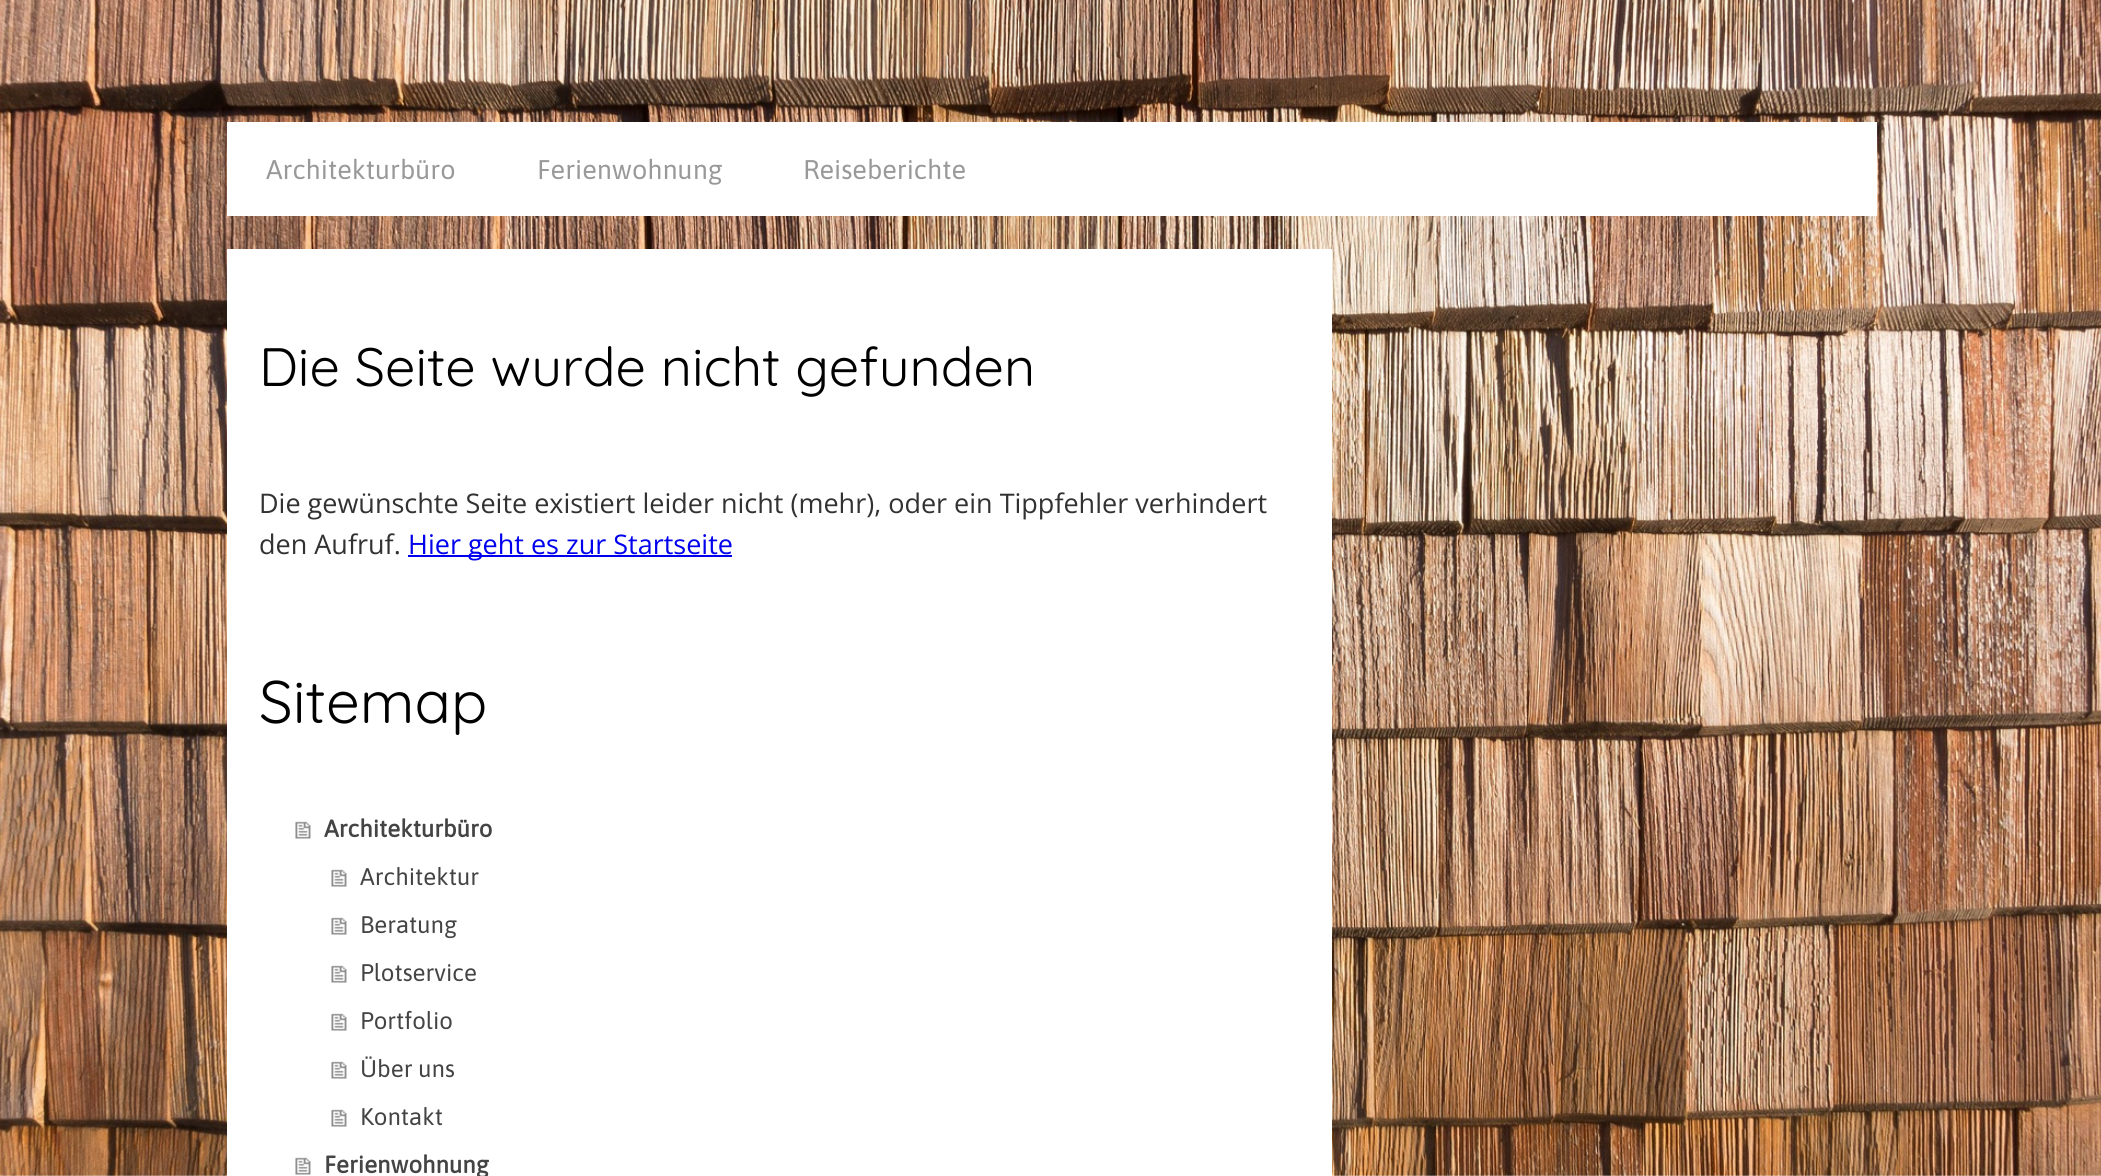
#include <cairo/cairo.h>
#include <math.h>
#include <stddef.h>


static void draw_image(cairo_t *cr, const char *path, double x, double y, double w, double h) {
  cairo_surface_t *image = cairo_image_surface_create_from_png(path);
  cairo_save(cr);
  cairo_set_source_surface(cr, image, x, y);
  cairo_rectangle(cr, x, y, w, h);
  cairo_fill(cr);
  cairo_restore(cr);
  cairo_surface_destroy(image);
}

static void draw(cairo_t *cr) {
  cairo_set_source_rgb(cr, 1, 1, 1);
  cairo_paint(cr);
  draw_image(cr, "images/1.png", 0, 0, 2101, 1176);
  cairo_set_source_rgb(cr, 1, 1, 1);
  cairo_rectangle(cr, 227, 122, 1650, 94);
  cairo_fill(cr);
  cairo_rectangle(cr, 227, 249, 1105, 927);
  cairo_fill(cr);
  cairo_set_source_rgb(cr, 0, 0, 238 / 255.0);
  cairo_rectangle(cr, 408, 555, 324, 2);
  cairo_fill(cr);
  draw_image(cr, "images/2.png", 295, 821, 16, 18);
  draw_image(cr, "images/2.png", 331, 869, 16, 18);
  draw_image(cr, "images/2.png", 331, 917, 16, 18);
  draw_image(cr, "images/2.png", 331, 965, 16, 18);
  draw_image(cr, "images/2.png", 331, 1013, 16, 18);
  draw_image(cr, "images/2.png", 331, 1061, 16, 18);
  draw_image(cr, "images/2.png", 331, 1109, 16, 18);
  draw_image(cr, "images/2.png", 295, 1157, 16, 18);
  cairo_select_font_face(cr, "Asap", CAIRO_FONT_SLANT_NORMAL, CAIRO_FONT_WEIGHT_NORMAL);
  cairo_set_font_size(cr, 27);
  cairo_set_source_rgb(cr, 153 / 255.0, 153 / 255.0, 153 / 255.0);
  cairo_move_to(cr, 266, 179);
  cairo_show_text(cr, "Architekturbüro");
  cairo_move_to(cr, 537, 179);
  cairo_show_text(cr, "Ferienwohnung");
  cairo_move_to(cr, 803, 179);
  cairo_show_text(cr, "Reiseberichte");
  cairo_select_font_face(cr, "Quicksand Light", CAIRO_FONT_SLANT_NORMAL, CAIRO_FONT_WEIGHT_NORMAL);
  cairo_set_font_size(cr, 54);
  cairo_set_source_rgb(cr, 0, 0, 0);
  cairo_move_to(cr, 259, 386);
  cairo_show_text(cr, "Die Seite wurde nicht gefunden");
  cairo_select_font_face(cr, "Open Sans", CAIRO_FONT_SLANT_NORMAL, CAIRO_FONT_WEIGHT_NORMAL);
  cairo_set_font_size(cr, 27);
  cairo_set_source_rgb(cr, 50 / 255.0, 50 / 255.0, 50 / 255.0);
  cairo_move_to(cr, 259, 513);
  cairo_show_text(cr, "Die gewünschte Seite existiert leider nicht (mehr), oder ein Tippfehler verhindert");
  cairo_move_to(cr, 259, 554);
  cairo_show_text(cr, "den Aufruf.");
  cairo_set_source_rgb(cr, 0, 0, 238 / 255.0);
  cairo_move_to(cr, 408, 554);
  cairo_show_text(cr, "Hier geht es zur Startseite");
  cairo_select_font_face(cr, "Quicksand Light", CAIRO_FONT_SLANT_NORMAL, CAIRO_FONT_WEIGHT_NORMAL);
  cairo_set_font_size(cr, 60);
  cairo_set_source_rgb(cr, 0, 0, 0);
  cairo_move_to(cr, 259, 723);
  cairo_show_text(cr, "Sitemap");
  cairo_select_font_face(cr, "Asap", CAIRO_FONT_SLANT_NORMAL, CAIRO_FONT_WEIGHT_BOLD);
  cairo_set_font_size(cr, 24);
  cairo_set_source_rgb(cr, 68 / 255.0, 68 / 255.0, 68 / 255.0);
  cairo_move_to(cr, 324, 837);
  cairo_show_text(cr, "Architekturbüro");
  cairo_select_font_face(cr, "Asap", CAIRO_FONT_SLANT_NORMAL, CAIRO_FONT_WEIGHT_NORMAL);
  cairo_move_to(cr, 360, 885);
  cairo_show_text(cr, "Architektur");
  cairo_move_to(cr, 360, 933);
  cairo_show_text(cr, "Beratung");
  cairo_move_to(cr, 360, 981);
  cairo_show_text(cr, "Plotservice");
  cairo_move_to(cr, 360, 1029);
  cairo_show_text(cr, "Portfolio");
  cairo_move_to(cr, 360, 1077);
  cairo_show_text(cr, "Über uns");
  cairo_move_to(cr, 360, 1125);
  cairo_show_text(cr, "Kontakt");
  cairo_select_font_face(cr, "Asap", CAIRO_FONT_SLANT_NORMAL, CAIRO_FONT_WEIGHT_BOLD);
  cairo_move_to(cr, 324, 1173);
  cairo_show_text(cr, "Ferienwohnung");
}

int main(void) {
  cairo_surface_t *surface = cairo_image_surface_create(CAIRO_FORMAT_RGB24, 2101, 1176);
  cairo_t *cr = cairo_create(surface);
  cairo_font_options_t *options = cairo_font_options_create();
  cairo_font_options_set_hint_metrics(options, CAIRO_HINT_METRICS_OFF);
  cairo_font_options_set_hint_style(options, CAIRO_HINT_STYLE_NONE);
  cairo_set_font_options(cr, options);
  cairo_set_miter_limit(cr, 4);
  draw(cr);
  cairo_surface_write_to_png(surface, "out.png");
  cairo_font_options_destroy(options);
  cairo_destroy(cr);
  cairo_surface_destroy(surface);
  return 0;
}
